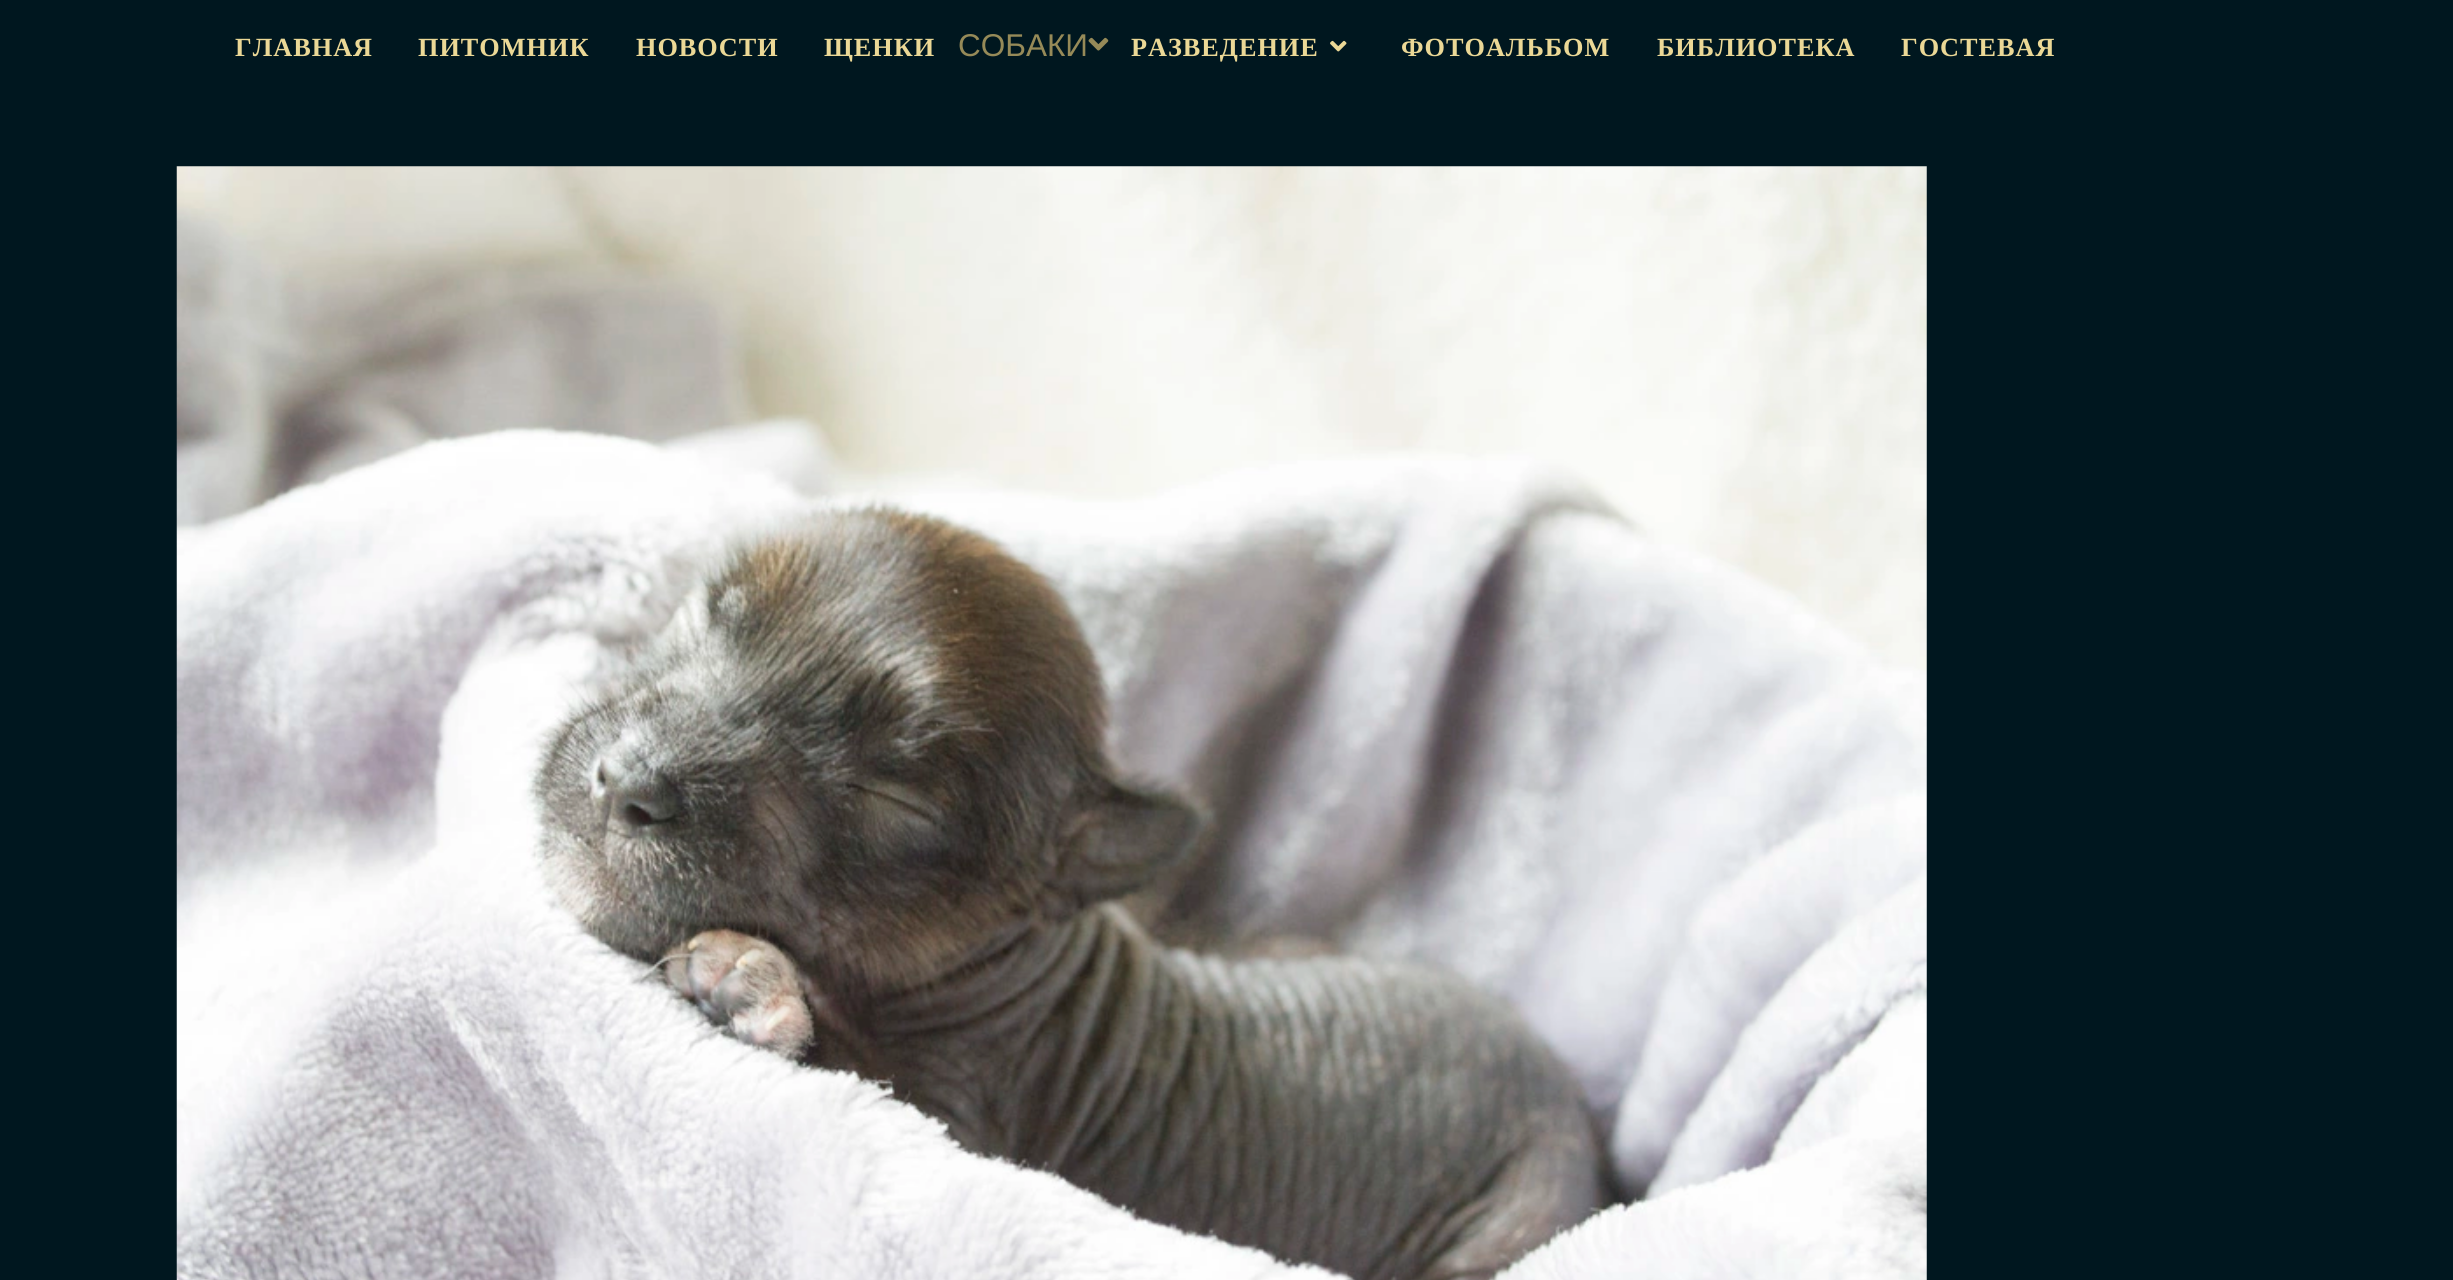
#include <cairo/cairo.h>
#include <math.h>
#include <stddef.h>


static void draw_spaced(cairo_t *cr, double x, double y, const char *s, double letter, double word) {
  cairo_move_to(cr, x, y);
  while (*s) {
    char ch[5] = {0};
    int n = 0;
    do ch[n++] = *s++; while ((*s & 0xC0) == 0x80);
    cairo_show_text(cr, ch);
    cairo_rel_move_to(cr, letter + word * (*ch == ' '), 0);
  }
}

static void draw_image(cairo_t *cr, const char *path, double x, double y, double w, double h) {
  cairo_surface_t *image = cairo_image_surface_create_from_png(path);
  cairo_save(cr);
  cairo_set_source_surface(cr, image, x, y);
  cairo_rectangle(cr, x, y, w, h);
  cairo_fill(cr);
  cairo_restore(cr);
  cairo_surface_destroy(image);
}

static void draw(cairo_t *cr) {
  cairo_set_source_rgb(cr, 0, 23 / 255.0, 31 / 255.0);
  cairo_paint(cr);
  draw_image(cr, "images/1.png", 1088, 37, 21, 14);
  draw_image(cr, "images/2.png", 1330, 40, 17, 12);
  draw_image(cr, "images/3.png", 176, 166, 1751, 1114);
  cairo_select_font_face(cr, "Liberation Serif", CAIRO_FONT_SLANT_NORMAL, CAIRO_FONT_WEIGHT_BOLD);
  cairo_set_font_size(cr, 26.25);
  cairo_set_source_rgb(cr, 235 / 255.0, 216 / 255.0, 150 / 255.0);
  draw_spaced(cr, 235, 56, "ГЛАВНАЯ", 1, 0);
  draw_spaced(cr, 418, 56, "ПИТОМНИК", 1, 0);
  draw_spaced(cr, 636, 56, "НОВОСТИ", 1, 0);
  draw_spaced(cr, 824, 56, "ЩЕНКИ", 1, 0);
  cairo_select_font_face(cr, "Liberation Sans", CAIRO_FONT_SLANT_NORMAL, CAIRO_FONT_WEIGHT_NORMAL);
  cairo_set_font_size(cr, 31.5);
  cairo_set_source_rgb(cr, 150 / 255.0, 138 / 255.0, 88 / 255.0);
  cairo_move_to(cr, 958, 56);
  cairo_show_text(cr, "СОБАКИ");
  cairo_select_font_face(cr, "Liberation Serif", CAIRO_FONT_SLANT_NORMAL, CAIRO_FONT_WEIGHT_BOLD);
  cairo_set_font_size(cr, 26.25);
  cairo_set_source_rgb(cr, 235 / 255.0, 216 / 255.0, 150 / 255.0);
  draw_spaced(cr, 1131, 56, "РАЗВЕДЕНИЕ", 1, 0);
  draw_spaced(cr, 1401, 56, "ФОТОАЛЬБОМ", 1, 0);
  draw_spaced(cr, 1657, 56, "БИБЛИОТЕКА", 1, 0);
  draw_spaced(cr, 1901, 56, "ГОСТЕВАЯ", 1, 0);
}

int main(void) {
  cairo_surface_t *surface = cairo_image_surface_create(CAIRO_FORMAT_RGB24, 2453, 1280);
  cairo_t *cr = cairo_create(surface);
  cairo_font_options_t *options = cairo_font_options_create();
  cairo_font_options_set_hint_metrics(options, CAIRO_HINT_METRICS_OFF);
  cairo_font_options_set_hint_style(options, CAIRO_HINT_STYLE_NONE);
  cairo_set_font_options(cr, options);
  cairo_set_miter_limit(cr, 4);
  draw(cr);
  cairo_surface_write_to_png(surface, "out.png");
  cairo_font_options_destroy(options);
  cairo_destroy(cr);
  cairo_surface_destroy(surface);
  return 0;
}
